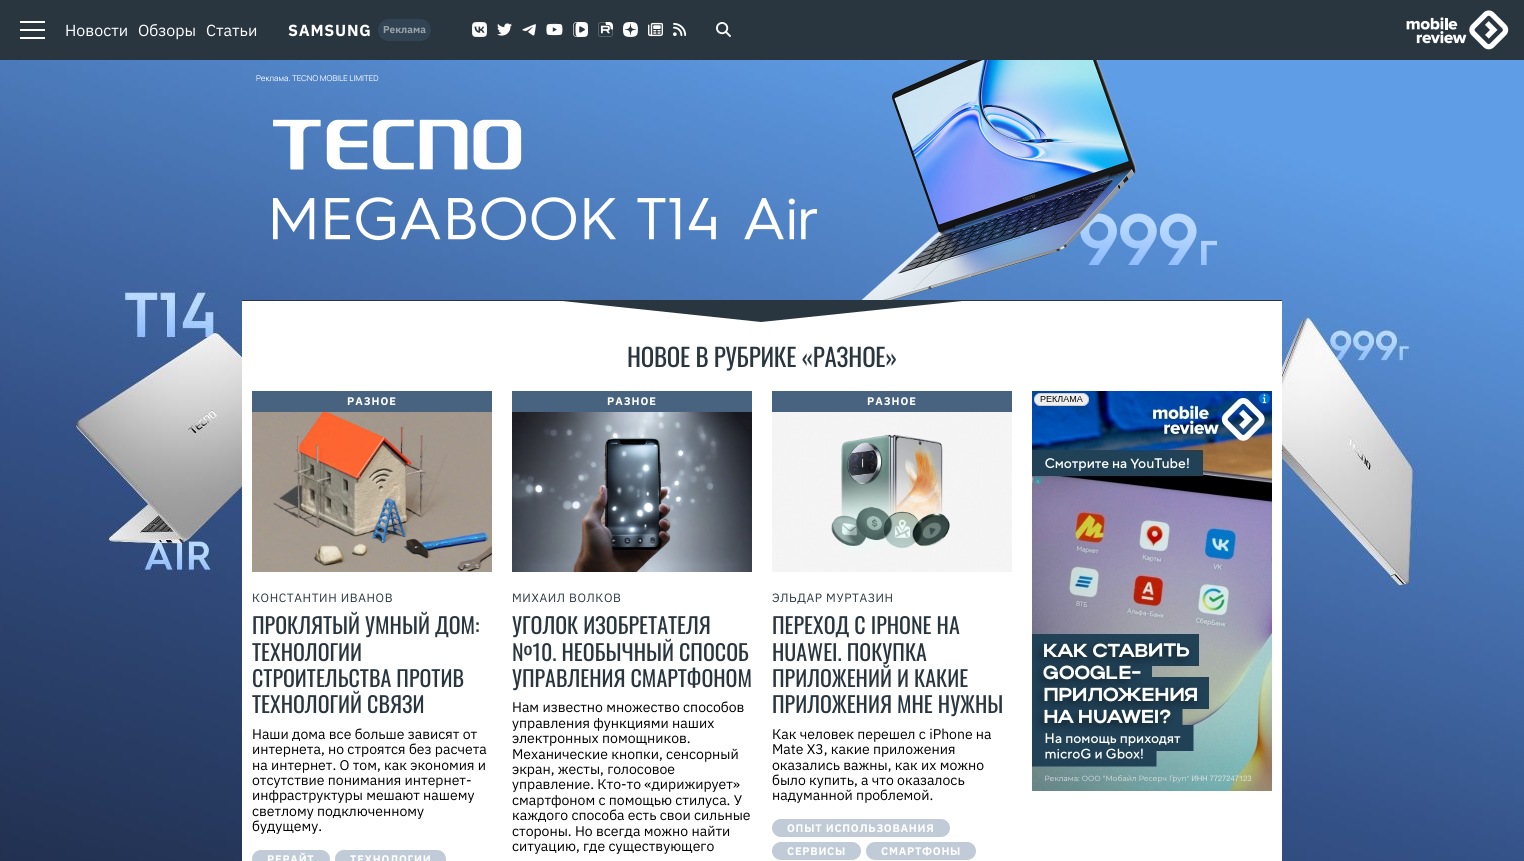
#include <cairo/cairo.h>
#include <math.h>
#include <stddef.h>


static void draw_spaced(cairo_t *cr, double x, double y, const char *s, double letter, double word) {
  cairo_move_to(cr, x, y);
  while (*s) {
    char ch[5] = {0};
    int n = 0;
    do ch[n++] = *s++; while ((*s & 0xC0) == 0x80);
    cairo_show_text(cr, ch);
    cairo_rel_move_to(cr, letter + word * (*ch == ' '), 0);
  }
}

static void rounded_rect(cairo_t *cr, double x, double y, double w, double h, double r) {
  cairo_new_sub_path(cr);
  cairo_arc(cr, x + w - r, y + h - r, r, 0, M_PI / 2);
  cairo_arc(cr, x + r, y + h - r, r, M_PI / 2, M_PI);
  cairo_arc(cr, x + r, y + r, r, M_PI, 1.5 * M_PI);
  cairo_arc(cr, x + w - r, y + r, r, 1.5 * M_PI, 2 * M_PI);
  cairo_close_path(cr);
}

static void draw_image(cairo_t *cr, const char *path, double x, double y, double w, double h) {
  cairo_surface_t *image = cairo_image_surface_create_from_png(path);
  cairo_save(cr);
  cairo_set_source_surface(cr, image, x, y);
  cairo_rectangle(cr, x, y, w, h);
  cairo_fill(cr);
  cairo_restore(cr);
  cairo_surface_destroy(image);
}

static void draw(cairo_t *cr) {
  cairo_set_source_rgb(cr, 1, 1, 1);
  cairo_paint(cr);
  draw_image(cr, "images/1.png", 0, 60, 1524, 801);
  cairo_set_source_rgb(cr, 41 / 255.0, 54 / 255.0, 64 / 255.0);
  cairo_rectangle(cr, 0, 0, 1524, 60);
  cairo_fill(cr);
  cairo_set_source_rgb(cr, 1, 1, 1);
  cairo_rectangle(cr, 20, 29, 25, 2);
  cairo_fill(cr);
  cairo_rectangle(cr, 20, 21, 25, 2);
  cairo_fill(cr);
  cairo_rectangle(cr, 20, 37, 25, 2);
  cairo_fill(cr);
  cairo_set_source_rgb(cr, 50 / 255.0, 68 / 255.0, 83 / 255.0);
  rounded_rect(cr, 378, 19, 53, 22, 11);
  cairo_fill(cr);
  draw_image(cr, "images/2.png", 472, 22, 15, 15);
  draw_image(cr, "images/3.png", 497, 23, 15, 13);
  draw_image(cr, "images/4.png", 522, 24, 14, 12);
  draw_image(cr, "images/5.png", 546, 23, 17, 13);
  draw_image(cr, "images/6.png", 573, 22, 15, 15);
  draw_image(cr, "images/7.png", 598, 22, 15, 15);
  draw_image(cr, "images/8.png", 623, 22, 15, 15);
  draw_image(cr, "images/9.png", 648, 22, 15, 15);
  draw_image(cr, "images/10.png", 673, 23, 13, 13);
  draw_image(cr, "images/11.png", 716, 22, 15, 15);
  draw_image(cr, "images/12.png", 1406, 10, 103, 40);
  draw_image(cr, "images/13.png", 256, 60, 961, 240);
  cairo_set_source_rgb(cr, 1, 1, 1);
  cairo_rectangle(cr, 242, 301, 1040, 560);
  cairo_fill(cr);
  cairo_set_source_rgb(cr, 41 / 255.0, 54 / 255.0, 64 / 255.0);
  cairo_rectangle(cr, 242, 300, 1040, 1);
  cairo_fill(cr);
  cairo_new_path(cr);
  cairo_move_to(cr, 962, 301);
  cairo_line_to(cr, 761, 322);
  cairo_line_to(cr, 562, 301);
  cairo_fill(cr);
  cairo_set_source_rgb(cr, 72 / 255.0, 99 / 255.0, 127 / 255.0);
  cairo_rectangle(cr, 252, 391, 240, 21);
  cairo_fill(cr);
  draw_image(cr, "images/14.png", 252, 412, 240, 160);
  cairo_set_source_rgb(cr, 192 / 255.0, 203 / 255.0, 215 / 255.0);
  rounded_rect(cr, 252, 850, 78, 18, 9);
  cairo_fill(cr);
  rounded_rect(cr, 335, 850, 111, 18, 9);
  cairo_fill(cr);
  cairo_set_source_rgb(cr, 72 / 255.0, 99 / 255.0, 127 / 255.0);
  cairo_rectangle(cr, 512, 391, 240, 21);
  cairo_fill(cr);
  draw_image(cr, "images/15.png", 512, 412, 240, 160);
  cairo_rectangle(cr, 772, 391, 240, 21);
  cairo_fill(cr);
  draw_image(cr, "images/16.png", 772, 412, 240, 160);
  cairo_set_source_rgb(cr, 192 / 255.0, 203 / 255.0, 215 / 255.0);
  rounded_rect(cr, 772, 819, 178, 18, 9);
  cairo_fill(cr);
  rounded_rect(cr, 772, 842, 89, 18, 9);
  cairo_fill(cr);
  rounded_rect(cr, 866, 842, 110, 18, 9);
  cairo_fill(cr);
  draw_image(cr, "images/17.png", 1032, 391, 240, 400);
  cairo_select_font_face(cr, "IBM Plex Sans", CAIRO_FONT_SLANT_NORMAL, CAIRO_FONT_WEIGHT_NORMAL);
  cairo_set_font_size(cr, 16);
  cairo_set_source_rgb(cr, 1, 1, 1);
  cairo_move_to(cr, 65, 36);
  cairo_show_text(cr, "Новости");
  cairo_move_to(cr, 138, 36);
  cairo_show_text(cr, "Обзоры");
  cairo_move_to(cr, 206, 36);
  cairo_show_text(cr, "Статьи");
  cairo_select_font_face(cr, "IBM Plex Sans", CAIRO_FONT_SLANT_NORMAL, CAIRO_FONT_WEIGHT_BOLD);
  draw_spaced(cr, 288, 36, "SAMSUNG", 0.75, 0);
  cairo_set_font_size(cr, 10);
  cairo_set_source_rgb(cr, 153 / 255.0, 162 / 255.0, 169 / 255.0);
  cairo_move_to(cr, 383, 33);
  cairo_show_text(cr, "Реклама");
  cairo_select_font_face(cr, "Oswald", CAIRO_FONT_SLANT_NORMAL, CAIRO_FONT_WEIGHT_NORMAL);
  cairo_set_font_size(cr, 25);
  cairo_set_source_rgb(cr, 41 / 255.0, 54 / 255.0, 64 / 255.0);
  draw_spaced(cr, 627, 367, "НОВОЕ В РУБРИКЕ «РАЗНОЕ»", -0.25, 0);
  cairo_select_font_face(cr, "IBM Plex Sans", CAIRO_FONT_SLANT_NORMAL, CAIRO_FONT_WEIGHT_BOLD);
  cairo_set_font_size(cr, 11);
  cairo_set_source_rgb(cr, 1, 1, 1);
  draw_spaced(cr, 347, 405, "РАЗНОЕ", 1, 0);
  cairo_select_font_face(cr, "IBM Plex Sans", CAIRO_FONT_SLANT_NORMAL, CAIRO_FONT_WEIGHT_NORMAL);
  cairo_set_font_size(cr, 12);
  cairo_set_source_rgb(cr, 41 / 255.0, 54 / 255.0, 64 / 255.0);
  draw_spaced(cr, 252, 602, "КОНСТАНТИН ИВАНОВ", 0.6, 0);
  cairo_select_font_face(cr, "Oswald", CAIRO_FONT_SLANT_NORMAL, CAIRO_FONT_WEIGHT_NORMAL);
  cairo_set_font_size(cr, 22);
  cairo_move_to(cr, 252, 634);
  cairo_show_text(cr, "ПРОКЛЯТЫЙ УМНЫЙ ДОМ:");
  cairo_move_to(cr, 252, 661);
  cairo_show_text(cr, "ТЕХНОЛОГИИ");
  cairo_move_to(cr, 252, 687);
  cairo_show_text(cr, "СТРОИТЕЛЬСТВА ПРОТИВ");
  cairo_move_to(cr, 252, 713);
  cairo_show_text(cr, "ТЕХНОЛОГИЙ СВЯЗИ");
  cairo_select_font_face(cr, "IBM Plex Sans", CAIRO_FONT_SLANT_NORMAL, CAIRO_FONT_WEIGHT_NORMAL);
  cairo_set_font_size(cr, 14);
  cairo_set_source_rgb(cr, 0, 0, 0);
  cairo_move_to(cr, 252, 739);
  cairo_show_text(cr, "Наши дома все больше зависят от");
  cairo_move_to(cr, 252, 754);
  cairo_show_text(cr, "интернета, но строятся без расчета");
  cairo_move_to(cr, 252, 770);
  cairo_show_text(cr, "на интернет. О том, как экономия и");
  cairo_move_to(cr, 252, 785);
  cairo_show_text(cr, "отсутствие понимания интернет-");
  cairo_move_to(cr, 252, 800);
  cairo_show_text(cr, "инфраструктуры мешают нашему");
  cairo_move_to(cr, 252, 816);
  cairo_show_text(cr, "светлому подключенному");
  cairo_move_to(cr, 252, 831);
  cairo_show_text(cr, "будущему.");
  cairo_select_font_face(cr, "IBM Plex Sans", CAIRO_FONT_SLANT_NORMAL, CAIRO_FONT_WEIGHT_BOLD);
  cairo_set_font_size(cr, 11);
  cairo_set_source_rgb(cr, 1, 1, 1);
  draw_spaced(cr, 267, 863, "РЕРАЙТ", 0.75, 0);
  draw_spaced(cr, 350, 863, "ТЕХНОЛОГИИ", 0.75, 0);
  draw_spaced(cr, 607, 405, "РАЗНОЕ", 1, 0);
  cairo_select_font_face(cr, "IBM Plex Sans", CAIRO_FONT_SLANT_NORMAL, CAIRO_FONT_WEIGHT_NORMAL);
  cairo_set_font_size(cr, 12);
  cairo_set_source_rgb(cr, 41 / 255.0, 54 / 255.0, 64 / 255.0);
  draw_spaced(cr, 512, 602, "МИХАИЛ ВОЛКОВ", 0.6, 0);
  cairo_select_font_face(cr, "Oswald", CAIRO_FONT_SLANT_NORMAL, CAIRO_FONT_WEIGHT_NORMAL);
  cairo_set_font_size(cr, 22);
  cairo_move_to(cr, 512, 634);
  cairo_show_text(cr, "УГОЛОК ИЗОБРЕТАТЕЛЯ");
  cairo_move_to(cr, 512, 661);
  cairo_show_text(cr, "№10. НЕОБЫЧНЫЙ СПОСОБ");
  cairo_move_to(cr, 512, 687);
  cairo_show_text(cr, "УПРАВЛЕНИЯ СМАРТФОНОМ");
  cairo_select_font_face(cr, "IBM Plex Sans", CAIRO_FONT_SLANT_NORMAL, CAIRO_FONT_WEIGHT_NORMAL);
  cairo_set_font_size(cr, 14);
  cairo_set_source_rgb(cr, 0, 0, 0);
  cairo_move_to(cr, 512, 712);
  cairo_show_text(cr, "Нам известно множество способов");
  cairo_move_to(cr, 512, 728);
  cairo_show_text(cr, "управления функциями наших");
  cairo_move_to(cr, 512, 743);
  cairo_show_text(cr, "электронных помощников.");
  cairo_move_to(cr, 512, 759);
  cairo_show_text(cr, "Механические кнопки, сенсорный");
  cairo_move_to(cr, 512, 774);
  cairo_show_text(cr, "экран, жесты, голосовое");
  cairo_move_to(cr, 512, 789);
  cairo_show_text(cr, "управление. Кто-то «дирижирует»");
  cairo_move_to(cr, 512, 805);
  cairo_show_text(cr, "смартфоном с помощью стилуса. У");
  cairo_move_to(cr, 512, 820);
  cairo_show_text(cr, "каждого способа есть свои сильные");
  cairo_move_to(cr, 512, 836);
  cairo_show_text(cr, "стороны. Но всегда можно найти");
  cairo_move_to(cr, 512, 851);
  cairo_show_text(cr, "ситуацию, где существующего");
  cairo_select_font_face(cr, "IBM Plex Sans", CAIRO_FONT_SLANT_NORMAL, CAIRO_FONT_WEIGHT_BOLD);
  cairo_set_font_size(cr, 11);
  cairo_set_source_rgb(cr, 1, 1, 1);
  draw_spaced(cr, 867, 405, "РАЗНОЕ", 1, 0);
  cairo_select_font_face(cr, "IBM Plex Sans", CAIRO_FONT_SLANT_NORMAL, CAIRO_FONT_WEIGHT_NORMAL);
  cairo_set_font_size(cr, 12);
  cairo_set_source_rgb(cr, 41 / 255.0, 54 / 255.0, 64 / 255.0);
  draw_spaced(cr, 772, 602, "ЭЛЬДАР МУРТАЗИН", 0.6, 0);
  cairo_select_font_face(cr, "Oswald", CAIRO_FONT_SLANT_NORMAL, CAIRO_FONT_WEIGHT_NORMAL);
  cairo_set_font_size(cr, 22);
  cairo_move_to(cr, 772, 634);
  cairo_show_text(cr, "ПЕРЕХОД С IPHONE НА");
  cairo_move_to(cr, 772, 661);
  cairo_show_text(cr, "HUAWEI. ПОКУПКА");
  cairo_move_to(cr, 772, 687);
  cairo_show_text(cr, "ПРИЛОЖЕНИЙ И КАКИЕ");
  cairo_move_to(cr, 772, 713);
  cairo_show_text(cr, "ПРИЛОЖЕНИЯ МНЕ НУЖНЫ");
  cairo_select_font_face(cr, "IBM Plex Sans", CAIRO_FONT_SLANT_NORMAL, CAIRO_FONT_WEIGHT_NORMAL);
  cairo_set_font_size(cr, 14);
  cairo_set_source_rgb(cr, 0, 0, 0);
  cairo_move_to(cr, 772, 739);
  cairo_show_text(cr, "Как человек перешел с iPhone на");
  cairo_move_to(cr, 772, 754);
  cairo_show_text(cr, "Mate X3, какие приложения");
  cairo_move_to(cr, 772, 770);
  cairo_show_text(cr, "оказались важны, как их можно");
  cairo_move_to(cr, 772, 785);
  cairo_show_text(cr, "было купить, а что оказалось");
  cairo_move_to(cr, 772, 800);
  cairo_show_text(cr, "надуманной проблемой.");
  cairo_select_font_face(cr, "IBM Plex Sans", CAIRO_FONT_SLANT_NORMAL, CAIRO_FONT_WEIGHT_BOLD);
  cairo_set_font_size(cr, 11);
  cairo_set_source_rgb(cr, 1, 1, 1);
  draw_spaced(cr, 787, 832, "ОПЫТ ИСПОЛЬЗОВАНИЯ", 0.75, 0);
  draw_spaced(cr, 787, 855, "СЕРВИСЫ", 0.75, 0);
  draw_spaced(cr, 881, 855, "СМАРТФОНЫ", 0.75, 0);
}

int main(void) {
  cairo_surface_t *surface = cairo_image_surface_create(CAIRO_FORMAT_RGB24, 1524, 861);
  cairo_t *cr = cairo_create(surface);
  cairo_font_options_t *options = cairo_font_options_create();
  cairo_font_options_set_hint_metrics(options, CAIRO_HINT_METRICS_OFF);
  cairo_font_options_set_hint_style(options, CAIRO_HINT_STYLE_NONE);
  cairo_set_font_options(cr, options);
  cairo_set_miter_limit(cr, 4);
  draw(cr);
  cairo_surface_write_to_png(surface, "out.png");
  cairo_font_options_destroy(options);
  cairo_destroy(cr);
  cairo_surface_destroy(surface);
  return 0;
}
